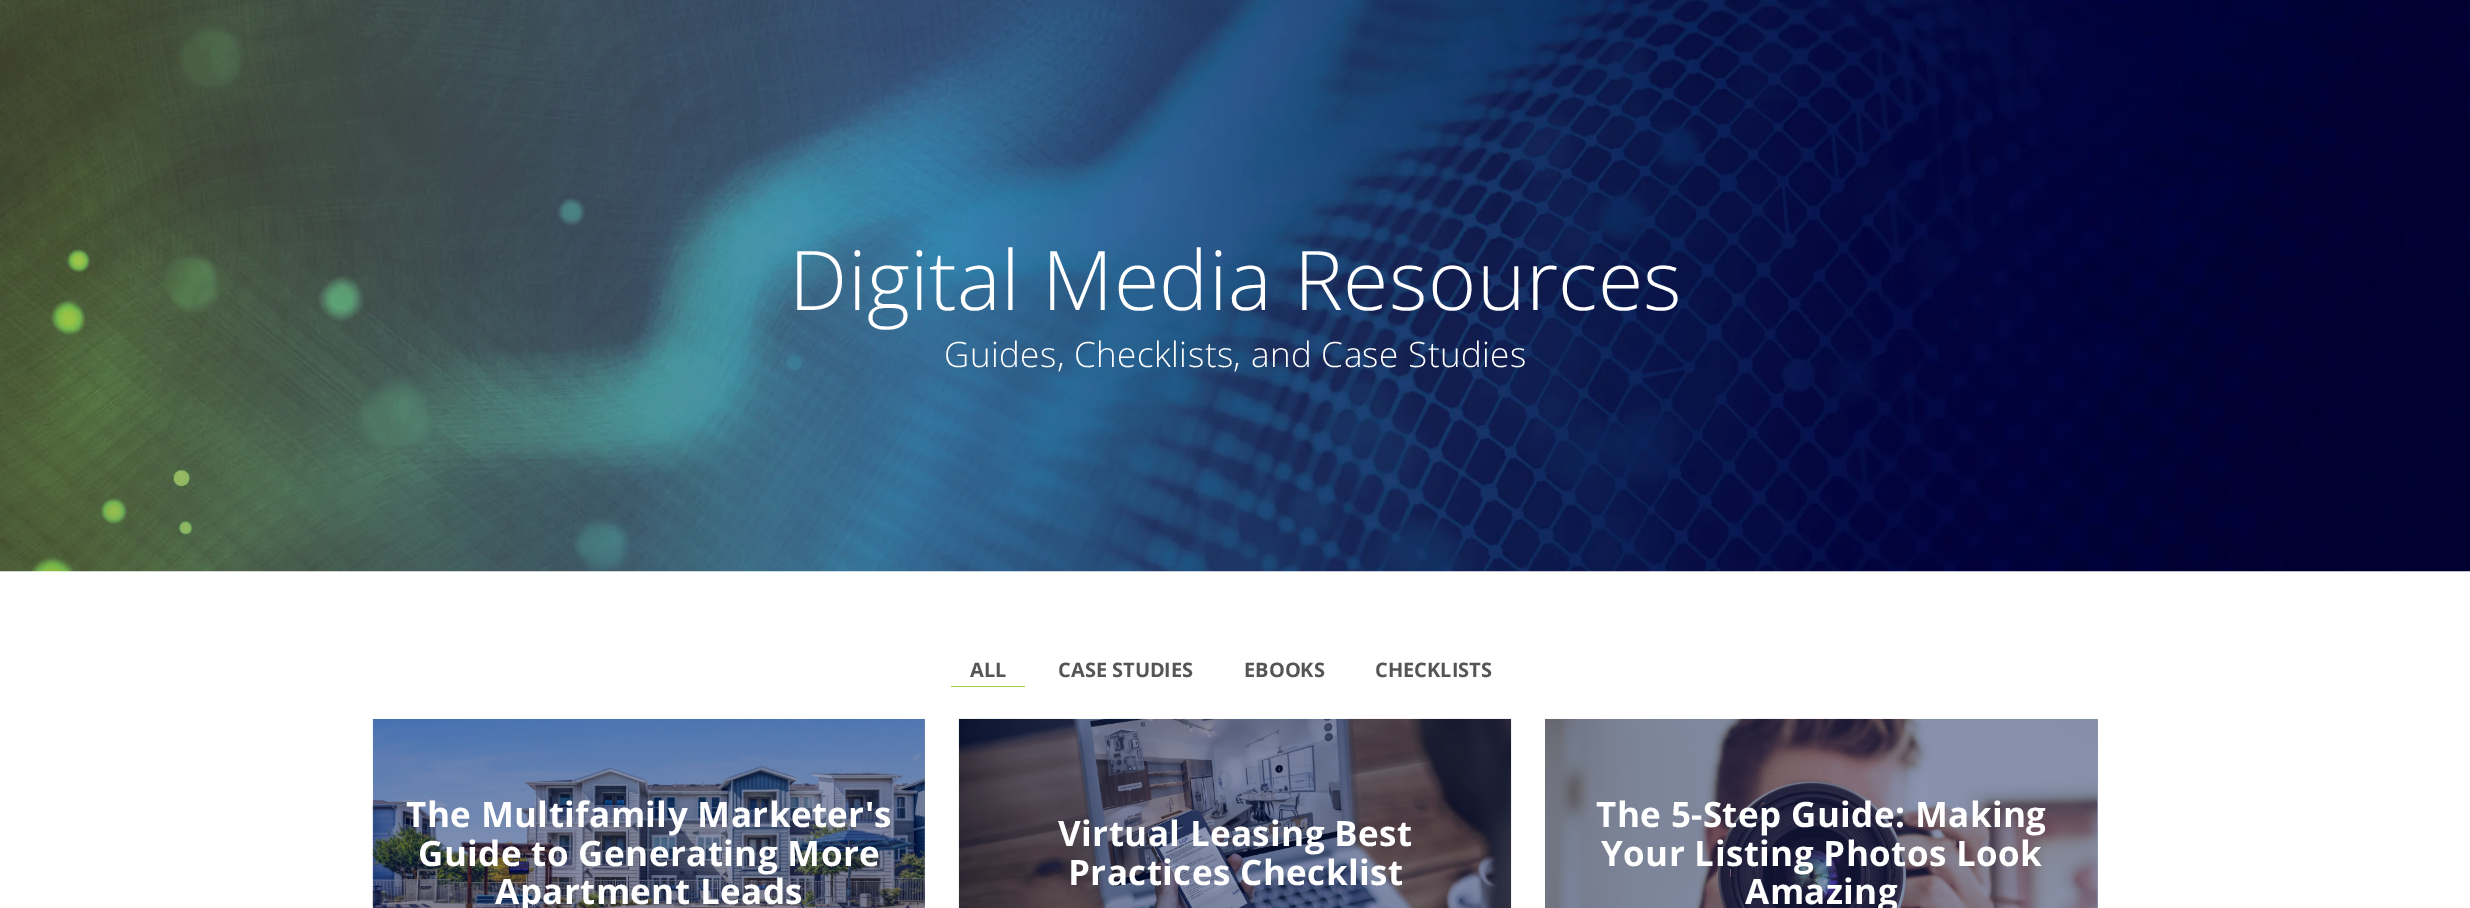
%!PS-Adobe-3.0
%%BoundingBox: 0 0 2470 908
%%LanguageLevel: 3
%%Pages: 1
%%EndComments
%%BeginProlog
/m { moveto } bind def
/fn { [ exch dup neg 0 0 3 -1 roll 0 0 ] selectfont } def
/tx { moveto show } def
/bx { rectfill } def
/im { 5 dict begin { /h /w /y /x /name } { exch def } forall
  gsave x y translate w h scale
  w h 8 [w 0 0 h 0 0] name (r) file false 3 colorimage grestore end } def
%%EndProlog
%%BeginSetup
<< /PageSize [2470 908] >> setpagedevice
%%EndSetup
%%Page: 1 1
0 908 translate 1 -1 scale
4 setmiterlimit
1 setgray
0 0 2470 908 bx
0.549 0.588 0.698 setrgbcolor
2097 719 1 189 bx
(image0.raw) 0 0 2470 572 im
/OpenSans-Light 82.5 fn
1 setgray
789 310 m 0.4 0 (Digital Media Resources) ashow
/OpenSans-Light 35 fn
944 367 m 0.4 0 (Guides, Checklists, and Case Studies) ashow
0.667 0.816 0.263 setrgbcolor
951 686 74 1 bx
/OpenSans-Bold 20 fn
0.333 setgray
(ALL) 970 677 tx
(CASE STUDIES) 1058 677 tx
(EBOOKS) 1244 677 tx
(CHECKLISTS) 1375 677 tx
(image1.raw) 372 718 553 190 im
/OpenSans-Bold 35 fn
1 setgray
406 827 m 0.4 0 (The Multifamily Marketer's) ashow
418 866 m 0.4 0 (Guide to Generating More) ashow
495 904 m 0.4 0 (Apartment Leads) ashow
(image2.raw) 958 718 554 190 im
1058 846 m 0.4 0 (Virtual Leasing Best) ashow
1068 885 m 0.4 0 (Practices Checklist) ashow
(image3.raw) 1545 718 553 190 im
1596 827 m 0.4 0 (The 5-Step Guide: Making) ashow
1601 866 m 0.4 0 (Your Listing Photos Look) ashow
1745 904 m 0.4 0 (Amazing) ashow
showpage
%%EOF
